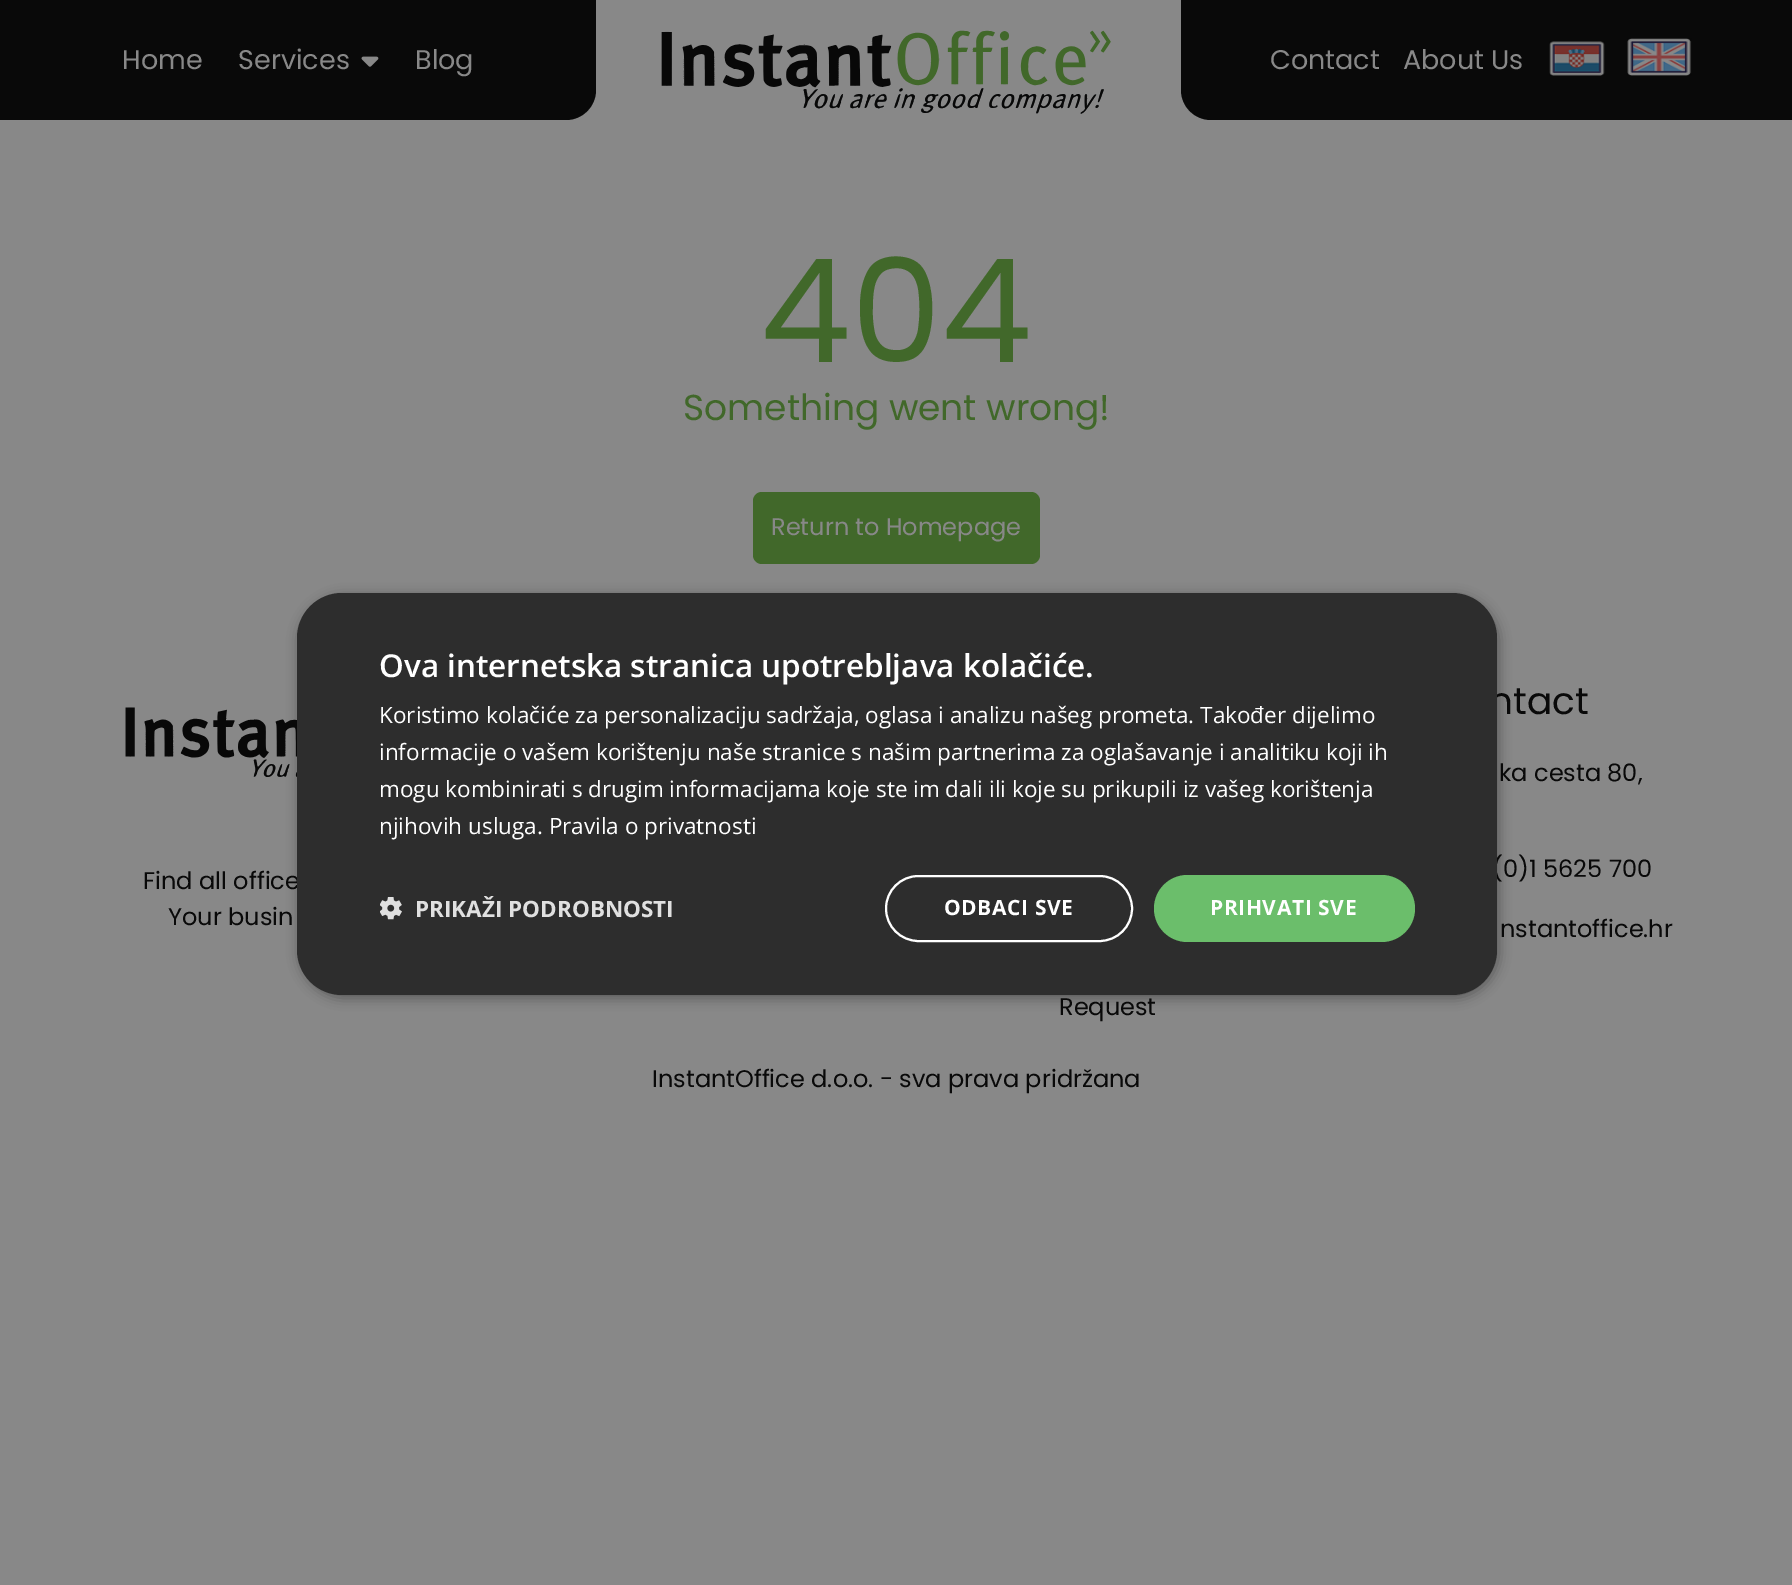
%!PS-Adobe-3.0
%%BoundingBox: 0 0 1792 1585
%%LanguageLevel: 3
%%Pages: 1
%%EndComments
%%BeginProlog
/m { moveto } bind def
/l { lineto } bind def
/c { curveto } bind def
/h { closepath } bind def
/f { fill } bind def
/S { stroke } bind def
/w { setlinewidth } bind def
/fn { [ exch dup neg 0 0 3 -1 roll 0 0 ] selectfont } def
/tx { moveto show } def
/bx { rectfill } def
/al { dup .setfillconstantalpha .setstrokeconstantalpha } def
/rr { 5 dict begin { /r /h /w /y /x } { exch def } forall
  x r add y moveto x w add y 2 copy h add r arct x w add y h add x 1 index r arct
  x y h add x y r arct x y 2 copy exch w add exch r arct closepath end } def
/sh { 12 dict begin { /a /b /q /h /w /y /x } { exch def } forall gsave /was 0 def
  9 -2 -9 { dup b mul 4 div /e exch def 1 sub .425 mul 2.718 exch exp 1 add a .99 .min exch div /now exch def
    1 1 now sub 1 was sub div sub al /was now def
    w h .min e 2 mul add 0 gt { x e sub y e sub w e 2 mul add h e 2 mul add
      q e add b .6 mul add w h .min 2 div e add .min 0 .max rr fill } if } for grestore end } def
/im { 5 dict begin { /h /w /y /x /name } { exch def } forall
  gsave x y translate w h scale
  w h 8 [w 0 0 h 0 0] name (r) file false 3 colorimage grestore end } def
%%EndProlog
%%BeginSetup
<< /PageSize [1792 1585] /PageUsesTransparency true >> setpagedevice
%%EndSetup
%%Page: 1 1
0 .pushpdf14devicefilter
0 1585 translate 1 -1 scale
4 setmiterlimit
0.533 setgray
0 0 1792 1585 bx
0.035 setgray
0 0 m 596 0 l 596 90 l 596 106.5 582.5 120 566 120 c 0 120 l h f
/Poppins-Regular 27 fn
0.533 setgray
(Home) 122 69 tx
(Services) 238 69 tx
(image0.raw) 361 56 18 11 im
(Blog) 415 69 tx
(image1.raw) 661 30 450 84 im
0.035 setgray
1181 0 m 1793 0 l 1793 120 l 1211 120 l 1194.5 120 1181 106.5 1181 90 c h f
0.533 setgray
(Contact) 1270 69 tx
(About Us) 1403 69 tx
(image2.raw) 1549 41 56 35 im
(image3.raw) 1627 38 65 38 im
/Poppins-Regular 144 fn
0.255 0.408 0.165 setrgbcolor
(404) 760 362 tx
/Poppins-Regular 36 fn
(Something went wrong!) 683 420 tx
753 492 287 72 9 rr f
/Poppins-Regular 24 fn
0.533 setgray
(Return to Homepage) 771 535 tx
(image4.raw) 125 706 172 76 im
0.035 setgray
(Find all office) 143 889 tx
(Your busin) 168 925 tx
/Poppins-Regular 37.5 fn
(ntact) 1489 714 tx
/Poppins-Regular 24 fn
(ka cesta 80,) 1499 781 tx
(\(0\)1 5625 700) 1492 877 tx
(nstantoffice.hr) 1500 937 tx
(Request) 1059 1015 tx
(InstantOffice d.o.o. - sva prava pridržana) 652 1087 tx
0 setgray
299 596 1200 402 45 6 0.35 sh
0.176 setgray
297 593 1200 402 45 rr f
/OpenSans-SemiBold 31.5 fn
1 setgray
(Ova internetska stranica upotrebljava kolačiće.) 379 677 tx
/OpenSans-Regular 22.5 fn
(Koristimo kolačiće za personalizaciju sadržaja, oglasa i analizu našeg prometa. Također dijelimo) 379 723 tx
(informacije o vašem korištenju naše stranice s našim partnerima za oglašavanje i analitiku koji ih) 379 760 tx
(mogu kombinirati s drugim informacijama koje ste im dali ili koje su prikupili iz vašeg korištenja) 379 797 tx
(njihovih usluga. Pravila o privatnosti) 379 834 tx
(image5.raw) 380 897 22 23 im
/OpenSans-Bold 22.5 fn
0.878 setgray
(PRIKAŽI PODROBNOSTI) 415 917 tx
1 setgray
2 w
886 876 246 65 32.5 rr S
/OpenSans-Bold 21 fn
944 915 m 0.6 0 (ODBACI SVE) ashow
0.42 0.745 0.42 setrgbcolor
1154 875 261 67 33.5 rr f
1 setgray
1210 915 m 0.6 0 (PRIHVATI SVE) ashow
.poppdf14devicefilter showpage
%%EOF
